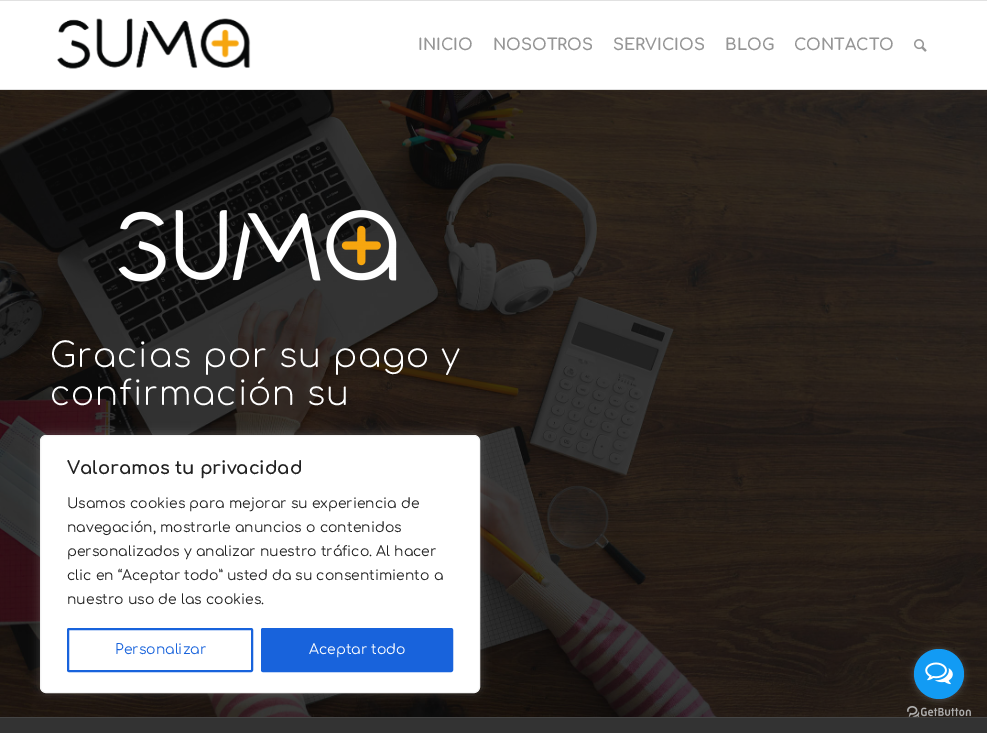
%!PS-Adobe-3.0
%%BoundingBox: 0 0 987 733
%%LanguageLevel: 3
%%Pages: 1
%%EndComments
%%BeginProlog
/m { moveto } bind def
/f { fill } bind def
/S { stroke } bind def
/q { gsave } bind def
/Q { grestore } bind def
/w { setlinewidth } bind def
/fn { [ exch dup neg 0 0 3 -1 roll 0 0 ] selectfont } def
/tx { moveto show } def
/bx { rectfill } def
/al { dup .setfillconstantalpha .setstrokeconstantalpha } def
/ci { newpath 0 360 arc closepath } def
/rr { 5 dict begin { /r /h /w /y /x } { exch def } forall
  x r add y moveto x w add y 2 copy h add r arct x w add y h add x 1 index r arct
  x y h add x y r arct x y 2 copy exch w add exch r arct closepath end } def
/sh { 12 dict begin { /a /b /q /h /w /y /x } { exch def } forall gsave /was 0 def
  9 -2 -9 { dup b mul 4 div /e exch def 1 sub .425 mul 2.718 exch exp 1 add a .99 .min exch div /now exch def
    1 1 now sub 1 was sub div sub al /was now def
    w h .min e 2 mul add 0 gt { x e sub y e sub w e 2 mul add h e 2 mul add
      q e add b .6 mul add w h .min 2 div e add .min 0 .max rr fill } if } for grestore end } def
/im { 5 dict begin { /h /w /y /x /name } { exch def } forall
  gsave x y translate w h scale
  w h 8 [w 0 0 h 0 0] name (r) file false 3 colorimage grestore end } def
%%EndProlog
%%BeginSetup
<< /PageSize [987 733] /PageUsesTransparency true >> setpagedevice
%%EndSetup
%%Page: 1 1
0 .pushpdf14devicefilter
0 733 translate 1 -1 scale
4 setmiterlimit
1 setgray
0 0 987 733 bx
0.882 setgray
0 0 987 1 bx
0 89 987 1 bx
(image0.raw) 57 18 194 51 im
/Comfortaa-Bold 16 fn
0.588 setgray
(INICIO) 418 50 tx
(NOSOTROS) 493 50 tx
(SERVICIOS) 613 50 tx
(BLOG) 725 50 tx
(CONTACTO) 794 50 tx
(image1.raw) 914 39 13 13 im
(image2.raw) 0 90 987 627 im
(image3.raw) 118 210 279 72 im
/Comfortaa-Light 34 fn
1 setgray
50 367 m 1 0 (Gracias por su pago y) ashow
50 405 m 1 0 (confirmación su) ashow
0.2 setgray
0 718 987 15 bx
0.267 setgray
0 717 987 1 bx
0.675 0.671 0.671 setrgbcolor
40 434 440 258 6 5 0.3 sh
1 setgray
40.5 435.5 439 257 5.5 rr q f Q
0.957 setgray
S
/Comfortaa-Bold 18 fn
0.129 setgray
(Valoramos tu privacidad) 67 474 tx
/Comfortaa-Regular 14 fn
(Usamos cookies para mejorar su experiencia de) 67 508 tx
(navegación, mostrarle anuncios o contenidos) 67 532 tx
(personalizados y analizar nuestro tráfico. Al hacer) 67 556 tx
(clic en “Aceptar todo” usted da su consentimiento a) 67 580 tx
(nuestro uso de las cookies.) 67 604 tx
0.094 0.388 0.863 setrgbcolor
2 w
68 629 184 42 1 rr S
(Personalizar) 115 654 tx
262 629 190 42 1 rr q f Q
S
1 setgray
(Aceptar todo) 309 654 tx
(image5.raw) 907 706 64 11 im
0.533 setgray
914 650 50 50 25 3.5 0.4 sh
0.071 0.608 0.957 setrgbcolor
939 674 25 ci f
(image4.raw) 925 662 28 23 im
.poppdf14devicefilter showpage
%%EOF
